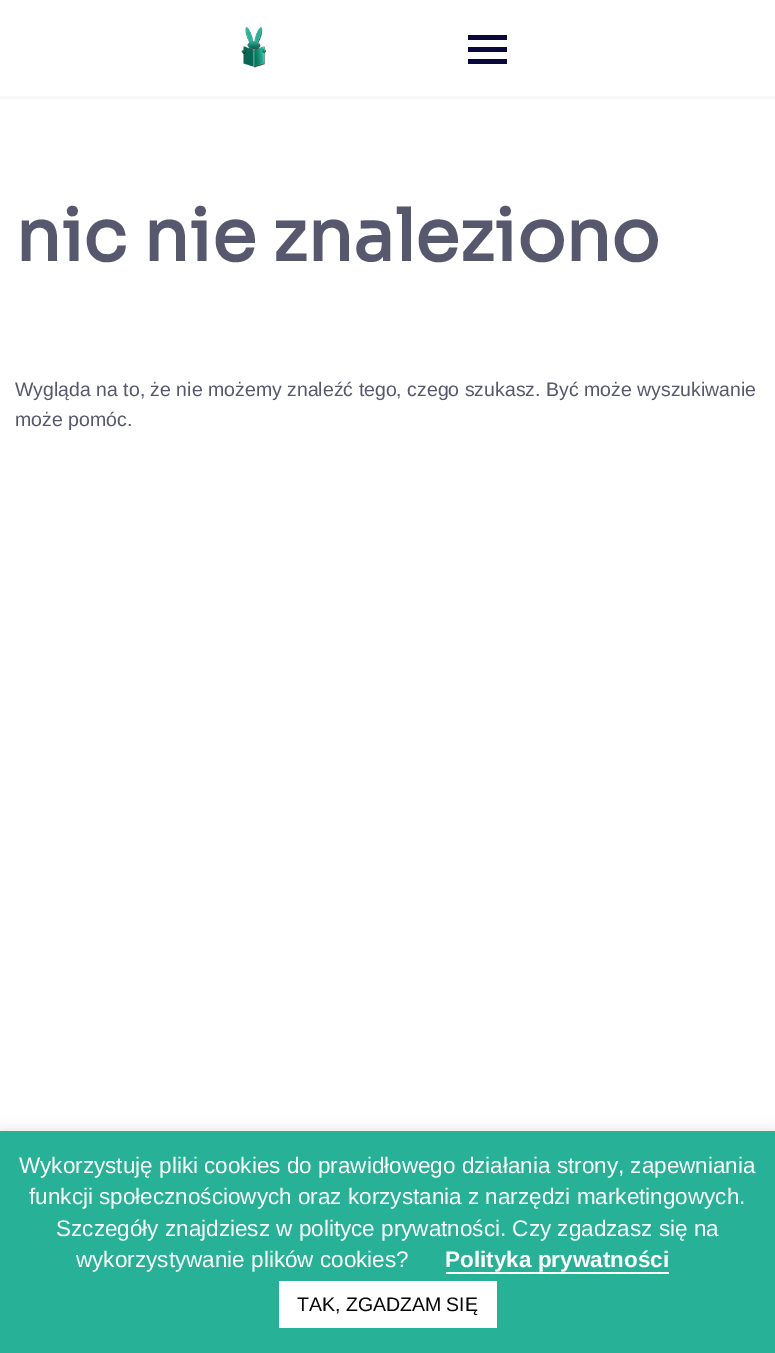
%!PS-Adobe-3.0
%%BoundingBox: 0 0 775 1353
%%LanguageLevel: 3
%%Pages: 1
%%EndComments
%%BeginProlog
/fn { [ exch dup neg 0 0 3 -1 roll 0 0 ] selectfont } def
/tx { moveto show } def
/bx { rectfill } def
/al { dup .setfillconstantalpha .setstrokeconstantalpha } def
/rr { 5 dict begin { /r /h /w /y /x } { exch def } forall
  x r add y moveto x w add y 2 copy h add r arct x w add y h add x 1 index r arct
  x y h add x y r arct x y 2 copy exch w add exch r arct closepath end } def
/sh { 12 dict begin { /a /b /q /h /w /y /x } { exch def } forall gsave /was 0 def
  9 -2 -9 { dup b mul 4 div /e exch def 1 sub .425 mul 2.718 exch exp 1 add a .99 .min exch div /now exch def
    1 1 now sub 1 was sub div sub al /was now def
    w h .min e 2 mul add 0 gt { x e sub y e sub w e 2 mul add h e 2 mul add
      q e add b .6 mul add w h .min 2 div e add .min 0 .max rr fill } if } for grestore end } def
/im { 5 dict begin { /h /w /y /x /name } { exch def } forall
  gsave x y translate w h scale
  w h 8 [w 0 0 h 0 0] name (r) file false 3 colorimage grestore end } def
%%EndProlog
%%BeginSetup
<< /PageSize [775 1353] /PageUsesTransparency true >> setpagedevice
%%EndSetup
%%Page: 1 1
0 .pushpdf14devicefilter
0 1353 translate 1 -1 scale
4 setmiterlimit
1 setgray
0 0 775 1353 bx
0.973 setgray
0 96 775 3 bx
(image0.raw) 241 26 26 42 im
0.039 0.031 0.231 setrgbcolor
468 47 39 5 bx
468 35 39 5 bx
468 59 39 5 bx
/Sora-Bold 72 fn
0.341 0.345 0.431 setrgbcolor
(nic nie znaleziono) 15 261 tx
/LiberationSans-Regular 19.5 fn
(Wygląda na to, że nie możemy znaleźć tego, czego szukasz. Być może wyszukiwanie) 15 396 tx
(może pomóc.) 15 426 tx
0.675 0.671 0.671 setrgbcolor
0 1130 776 222 0 7.5 0.3 sh
0.153 0.698 0.592 setrgbcolor
0 1131 775 222 bx
/LiberationSans-Regular 22.5 fn
1 setgray
(Wykorzystuję pliki cookies do prawidłowego działania strony, zapewniania) 19 1173 tx
(funkcji społecznościowych oraz korzystania z narzędzi marketingowych.) 29 1204 tx
(Szczegóły znajdziesz w polityce prywatności. Czy zgadzasz się na) 56 1236 tx
(wykorzystywanie plików cookies?) 76 1267 tx
/LiberationSans-Bold 22.5 fn
(Polityka prywatności) 445 1267 tx
446 1272 223 2 bx
279 1281 218 47 bx
/LiberationSans-Regular 19.5 fn
0.027 setgray
(TAK, ZGADZAM SIĘ) 297 1311 tx
.poppdf14devicefilter showpage
%%EOF
